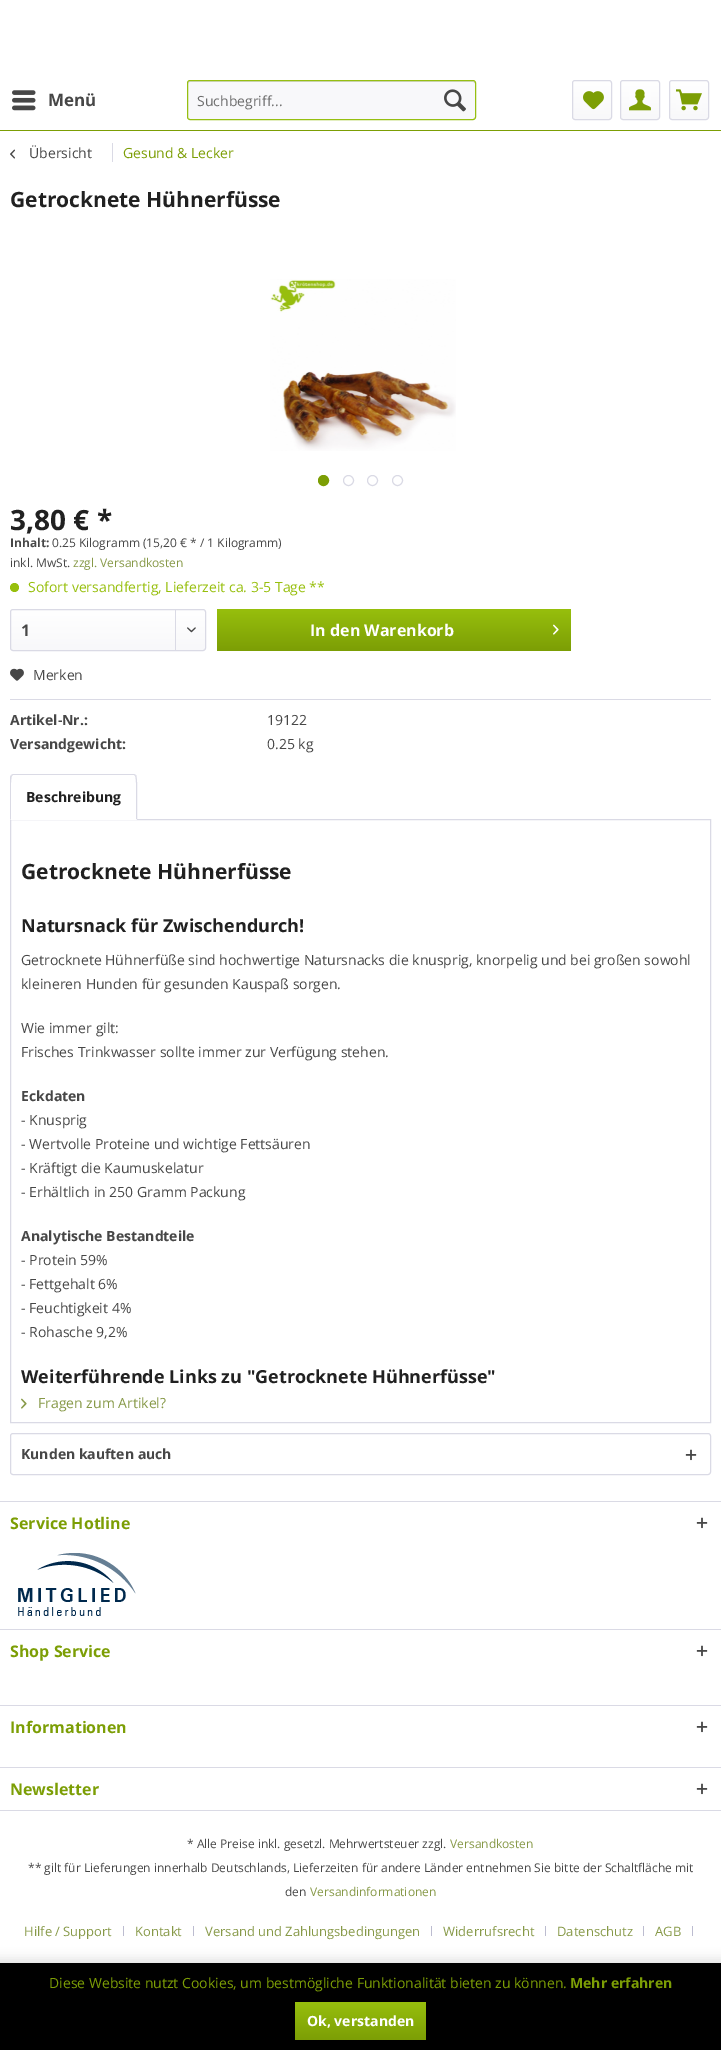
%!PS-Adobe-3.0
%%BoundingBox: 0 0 721 2050
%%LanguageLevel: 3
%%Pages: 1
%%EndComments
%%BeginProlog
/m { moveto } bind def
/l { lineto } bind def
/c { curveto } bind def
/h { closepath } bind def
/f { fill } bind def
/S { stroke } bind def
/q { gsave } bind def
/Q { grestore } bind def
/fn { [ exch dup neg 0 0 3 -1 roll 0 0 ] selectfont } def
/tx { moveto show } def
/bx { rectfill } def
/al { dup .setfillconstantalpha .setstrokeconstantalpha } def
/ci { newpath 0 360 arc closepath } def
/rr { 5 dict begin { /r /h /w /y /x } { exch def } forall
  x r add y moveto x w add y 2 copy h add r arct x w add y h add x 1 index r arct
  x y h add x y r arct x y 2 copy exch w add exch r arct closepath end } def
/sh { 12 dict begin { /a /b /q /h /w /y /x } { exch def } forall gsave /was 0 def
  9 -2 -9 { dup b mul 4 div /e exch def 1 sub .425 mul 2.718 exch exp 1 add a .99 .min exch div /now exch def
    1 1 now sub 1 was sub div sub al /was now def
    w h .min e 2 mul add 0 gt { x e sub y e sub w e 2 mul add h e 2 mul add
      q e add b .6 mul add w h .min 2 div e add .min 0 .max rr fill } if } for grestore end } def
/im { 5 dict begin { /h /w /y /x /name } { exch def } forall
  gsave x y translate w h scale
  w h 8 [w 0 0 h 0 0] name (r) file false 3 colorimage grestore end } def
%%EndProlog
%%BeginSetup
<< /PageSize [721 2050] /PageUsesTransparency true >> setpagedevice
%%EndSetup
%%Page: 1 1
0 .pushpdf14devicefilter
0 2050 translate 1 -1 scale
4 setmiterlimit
1 setgray
0 0 721 2050 bx
0.486 0.62 0.02 setrgbcolor
0 130 721 1 bx
(image0.raw) 12 90 24 21 im
/OpenSans-Bold 17 fn
0.278 setgray
(Menü) 48 106 tx
0.973 0.973 0.98 setrgbcolor
187 80 289 40 3 rr f
0.855 0.855 0.898 setrgbcolor
190 82 m 473 82 l 474 82 475 83 475 84 c 475 83 475 81 473 81 c 190 81 l 188 81 188 83 188 84 c 188 83 189 82 190 82 c h f
0.588 0.749 0.067 setrgbcolor
187.5 80.5 288 39 2.5 rr S
/OpenSans-Regular 14 fn
0.427 setgray
(Suchbegriff...) 197 106 tx
(image1.raw) 444 89 22 23 im
q 573 81 38 38 2 rr clip newpath
<< /ShadingType 2 /ColorSpace /DeviceRGB /Coords [592 81 592 119] /Extend [true true] /Function << /FunctionType 2 /Domain [0 1] /C0 [1 1 1] /C1 [0.973 0.973 0.98] /N 1 >> >> shfill Q
0.855 0.855 0.898 setrgbcolor
572.5 80.5 39 39 2.5 rr S
(image2.raw) 583 91 21 19 im
q 621 81 38 38 2 rr clip newpath
<< /ShadingType 2 /ColorSpace /DeviceRGB /Coords [640 81 640 119] /Extend [true true] /Function << /FunctionType 2 /Domain [0 1] /C0 [1 1 1] /C1 [0.973 0.973 0.98] /N 1 >> >> shfill Q
620.5 80.5 39 39 2.5 rr S
(image3.raw) 629 89 22 22 im
q 670 81 38 38 2 rr clip newpath
<< /ShadingType 2 /ColorSpace /DeviceRGB /Coords [689 81 689 119] /Extend [true true] /Function << /FunctionType 2 /Domain [0 1] /C0 [1 1 1] /C1 [0.973 0.973 0.98] /N 1 >> >> shfill Q
669.5 80.5 39 39 2.5 rr S
(image4.raw) 676 89 26 22 im
(image5.raw) 10 149 5 10 im
0.278 setgray
(Übersicht) 29 158 tx
0.855 0.855 0.898 setrgbcolor
112 143 1 19 bx
0.486 0.62 0.02 setrgbcolor
(Gesund & Lecker) 123 158 tx
/OpenSans-Bold 21 fn
0.129 setgray
(Getrocknete Hühnerfüsse) 10 207 tx
(image6.raw) 270 279 186 172 im
0.486 0.62 0.02 setrgbcolor
323.5 480.5 5 ci q f Q
S
0.855 0.855 0.898 setrgbcolor
348.5 480.5 5 ci S
372.5 480.5 5 ci S
397.5 480.5 5 ci S
/OpenSans-Bold 28 fn
0.129 setgray
(3,80 € *) 10 530 tx
/OpenSans-Bold 12 fn
0.278 setgray
(Inhalt:) 10 547 tx
/OpenSans-Regular 12 fn
(0.25 Kilogramm \(15,20 € * / 1 Kilogramm\)) 52 547 tx
(inkl. MwSt.) 10 567 tx
0.529 0.6 0.282 setrgbcolor
(zzgl. Versandkosten) 73 567 tx
0.592 0.749 0.051 setrgbcolor
14.5 587.5 4.5 ci f
/OpenSans-Regular 14 fn
(Sofort versandfertig, Lieferzeit ca. 3-5 Tage **) 28 592 tx
q 11 610 194 40 2 rr clip newpath
<< /ShadingType 2 /ColorSpace /DeviceRGB /Coords [108 610 108 650] /Extend [true true] /Function << /FunctionType 2 /Domain [0 1] /C0 [1 1 1] /C1 [0.973 0.973 0.98] /N 1 >> >> shfill Q
0.855 0.855 0.898 setrgbcolor
10.5 609.5 195 41 2.5 rr S
/OpenSans-Bold 16 fn
0.278 setgray
(1) 21 636 tx
0.855 0.855 0.898 setrgbcolor
175 610 1 40 bx
(image7.raw) 187 627 9 6 im
q 217 609 354 42 3 rr clip newpath
<< /ShadingType 2 /ColorSpace /DeviceRGB /Coords [394 609 394 651] /Extend [true true] /Function << /FunctionType 2 /Domain [0 1] /C0 [0.592 0.749 0.051] /C1 [0.486 0.62 0.02] /N 1 >> >> shfill Q
1 setgray
(In den Warenkorb) 310 636 tx
(image8.raw) 553 624 6 11 im
0.855 0.855 0.898 setrgbcolor
10 699 701 1 bx
(image9.raw) 10 668 14 13 im
/OpenSans-Regular 14 fn
0.278 setgray
(Merken) 33 680 tx
/OpenSans-Bold 14 fn
(Artikel-Nr.:) 10 725 tx
/OpenSans-Regular 14 fn
(19122) 267 725 tx
/OpenSans-Bold 14 fn
(Versandgewicht:) 10 749 tx
/OpenSans-Regular 14 fn
(0.25 kg) 267 749 tx
0.855 0.855 0.898 setrgbcolor
10.5 819.5 700 603 rectstroke
1 setgray
13 774 m 134 774 l 135.5 774 137 775.5 137 777 c 137 820 l 10 820 l 10 777 l 10 775.5 11.5 774 13 774 c h f
0.855 0.855 0.898 setrgbcolor
13 774 m 11 775 l 12 776 l 13 775 l 134 775 l 135 776 l 136 775 l 134 774 l h f
137 820 m 137 815 138 777 136 775 c 135 776 l 137 777 136 814 136 819 c h f
1 setgray
137 820 m 136 819 l 11 819 l 10 820 l h f
0.855 0.855 0.898 setrgbcolor
10 820 m 11 819 l 11 814 10 777 12 776 c 11 775 l 10 777 l h f
/OpenSans-Bold 14 fn
0.129 setgray
(Beschreibung) 26 802 tx
/OpenSans-Bold 21 fn
(Getrocknete Hühnerfüsse) 21 879 tx
/OpenSans-Bold 18 fn
(Natursnack für Zwischendurch!) 21 932 tx
/OpenSans-Regular 14 fn
0.278 setgray
(Getrocknete Hühnerfüße sind hochwertige Natursnacks die knusprig, knorpelig und bei großen sowohl) 21 965 tx
(kleineren Hunden für gesunden Kauspaß sorgen.) 21 989 tx
(Wie immer gilt:) 21 1033 tx
(Frisches Trinkwasser sollte immer zur Verfügung stehen.) 21 1057 tx
/OpenSans-Bold 14 fn
(Eckdaten) 21 1101 tx
/OpenSans-Regular 14 fn
(- Knusprig) 21 1125 tx
(- Wertvolle Proteine und wichtige Fettsäuren) 21 1149 tx
(- Kräftigt die Kaumuskelatur) 21 1173 tx
(- Erhältlich in 250 Gramm Packung) 21 1197 tx
/OpenSans-Bold 14 fn
(Analytische Bestandteile) 21 1241 tx
/OpenSans-Regular 14 fn
(- Protein 59%) 21 1265 tx
(- Fettgehalt 6%) 21 1289 tx
(- Feuchtigkeit 4%) 21 1313 tx
(- Rohasche 9,2%) 21 1337 tx
/OpenSans-Bold 18 fn
0.129 setgray
(Weiterführende Links zu "Getrocknete Hühnerfüsse") 21 1383 tx
(image10.raw) 21 1398 6 11 im
/OpenSans-Regular 14 fn
0.529 0.6 0.282 setrgbcolor
(Fragen zum Artikel?) 38 1408 tx
0.855 0.855 0.898 setrgbcolor
10.5 1433.5 700 41 2.5 rr S
/OpenSans-Bold 14 fn
0.278 setgray
(Kunden kauften auch) 21 1459 tx
(image11.raw) 685 1449 12 12 im
0.855 0.855 0.898 setrgbcolor
0 1501 721 1 bx
/OpenSans-Bold 16 fn
0.486 0.62 0.02 setrgbcolor
(Service Hotline) 10 1529 tx
(image11.raw) 696 1517 12 12 im
(image12.raw) 18 1553 118 63 im
0.855 0.855 0.898 setrgbcolor
0 1629 721 1 bx
0.486 0.62 0.02 setrgbcolor
(Shop Service) 10 1657 tx
(image11.raw) 696 1645 12 12 im
0.855 0.855 0.898 setrgbcolor
0 1705 721 1 bx
0.486 0.62 0.02 setrgbcolor
(Informationen) 10 1733 tx
(image11.raw) 696 1721 12 12 im
0.855 0.855 0.898 setrgbcolor
0 1767 721 1 bx
0 1810 721 1 bx
0.486 0.62 0.02 setrgbcolor
(Newsletter) 10 1795 tx
(image11.raw) 696 1783 12 12 im
/OpenSans-Regular 12 fn
0.278 setgray
(* Alle Preise inkl. gesetzl. Mehrwertsteuer zzgl.) 187 1848 tx
0.529 0.6 0.282 setrgbcolor
(Versandkosten) 450 1848 tx
0.278 setgray
(** gilt für Lieferungen innerhalb Deutschlands, Lieferzeiten für andere Länder entnehmen Sie bitte der Schaltfläche mit) 28 1872 tx
(den) 285 1896 tx
0.529 0.6 0.282 setrgbcolor
(Versandinformationen) 310 1896 tx
/OpenSans-Regular 13 fn
(Hilfe / Support) 24 1936 tx
0.737 0.737 0.816 setrgbcolor
123 1926 1 10 bx
0.529 0.6 0.282 setrgbcolor
(Kontakt) 135 1936 tx
0.737 0.737 0.816 setrgbcolor
193 1926 1 10 bx
0.529 0.6 0.282 setrgbcolor
(Versand und Zahlungsbedingungen) 205 1936 tx
0.737 0.737 0.816 setrgbcolor
431 1926 1 10 bx
0.529 0.6 0.282 setrgbcolor
(Widerrufsrecht) 443 1936 tx
0.737 0.737 0.816 setrgbcolor
545 1926 1 10 bx
0.529 0.6 0.282 setrgbcolor
(Datenschutz) 557 1936 tx
0.737 0.737 0.816 setrgbcolor
643 1926 1 10 bx
0.529 0.6 0.282 setrgbcolor
(AGB) 655 1936 tx
0.737 0.737 0.816 setrgbcolor
692 1926 1 10 bx
0 setgray
-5 1958 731 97 0 5 0.1 sh
0 1963 721 87 bx
/OpenSans-Regular 14 fn
0.486 0.62 0.02 setrgbcolor
(Diese Website nutzt Cookies, um bestmögliche Funktionalität bieten zu können.) 49 1988 tx
/OpenSans-Bold 14 fn
(Mehr erfahren) 570 1988 tx
q 295 2002 131 38 3 rr clip newpath
<< /ShadingType 2 /ColorSpace /DeviceRGB /Coords [361 2002 361 2040] /Extend [true true] /Function << /FunctionType 2 /Domain [0 1] /C0 [0.592 0.749 0.051] /C1 [0.486 0.62 0.02] /N 1 >> >> shfill Q
1 setgray
(Ok, verstanden) 307 2026 tx
.poppdf14devicefilter showpage
%%EOF
